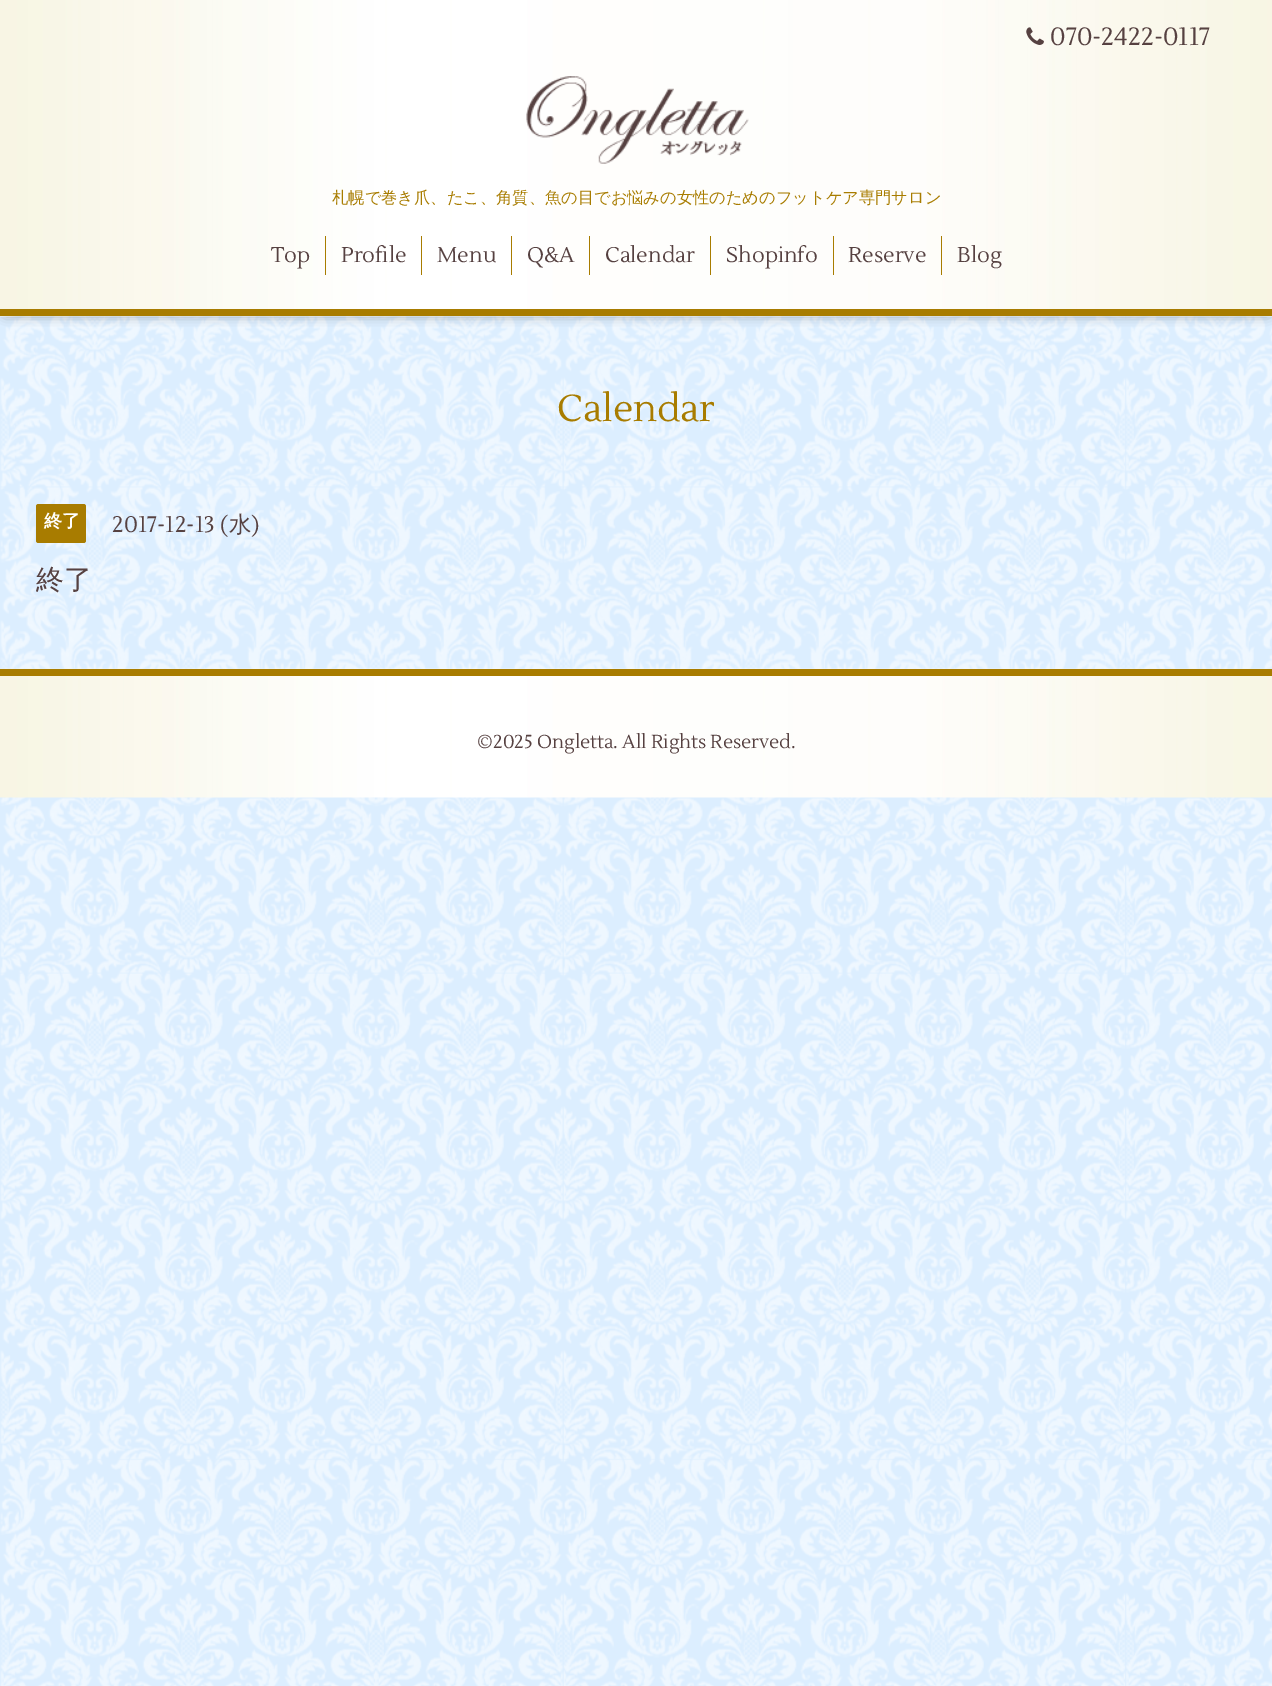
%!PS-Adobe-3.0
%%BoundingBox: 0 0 1272 1686
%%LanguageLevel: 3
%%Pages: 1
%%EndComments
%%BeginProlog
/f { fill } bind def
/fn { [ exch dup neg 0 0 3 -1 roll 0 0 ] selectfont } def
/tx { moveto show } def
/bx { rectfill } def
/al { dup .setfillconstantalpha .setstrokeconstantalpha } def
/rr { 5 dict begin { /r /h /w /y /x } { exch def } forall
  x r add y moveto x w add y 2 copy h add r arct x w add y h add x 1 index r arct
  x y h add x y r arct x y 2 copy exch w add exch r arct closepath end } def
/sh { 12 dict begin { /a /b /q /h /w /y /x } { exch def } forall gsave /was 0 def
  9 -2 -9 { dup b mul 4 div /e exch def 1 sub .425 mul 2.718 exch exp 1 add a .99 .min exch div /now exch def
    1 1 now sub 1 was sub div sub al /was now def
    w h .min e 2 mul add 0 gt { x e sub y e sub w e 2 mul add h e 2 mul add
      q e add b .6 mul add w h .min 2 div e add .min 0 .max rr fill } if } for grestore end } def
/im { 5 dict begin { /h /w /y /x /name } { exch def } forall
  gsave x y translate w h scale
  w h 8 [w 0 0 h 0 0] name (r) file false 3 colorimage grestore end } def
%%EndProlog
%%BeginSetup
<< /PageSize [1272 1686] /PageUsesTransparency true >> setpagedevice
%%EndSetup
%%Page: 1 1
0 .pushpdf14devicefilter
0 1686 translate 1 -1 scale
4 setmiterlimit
0.863 0.933 1 setrgbcolor
0 0 1272 1686 bx
(image0.raw) 0 316 1272 1370 im
0 setgray
5 6 1263 307 0 6 0.6 sh
(image1.raw) 0 0 1272 317 im
0.659 0.486 0 setrgbcolor
0 309 1272 7 bx
(image2.raw) 1026 27 18 18 im
/Lustria-Regular 25 fn
0.337 0.255 0.255 setrgbcolor
(070-2422-0117) 1050 45 tx
(image3.raw) 526 76 223 88 im
/WenQuanYiZenHei-Medium 16.25 fn
0.659 0.486 0 setrgbcolor
(札幌で巻き爪、たこ、角質、魚の目でお悩みの女性のためのフットケア専門サロン) 332 203 tx
/Lustria-Regular 21.25 fn
0.337 0.255 0.255 setrgbcolor
(Top) 271 262 tx
0.659 0.486 0 setrgbcolor
325 236 1 39 bx
0.337 0.255 0.255 setrgbcolor
(Profile) 341 262 tx
0.659 0.486 0 setrgbcolor
421 236 1 39 bx
0.337 0.255 0.255 setrgbcolor
(Menu) 437 262 tx
0.659 0.486 0 setrgbcolor
511 236 1 39 bx
0.337 0.255 0.255 setrgbcolor
(Q&A) 527 262 tx
0.659 0.486 0 setrgbcolor
589 236 1 39 bx
0.337 0.255 0.255 setrgbcolor
(Calendar) 605 262 tx
0.659 0.486 0 setrgbcolor
710 236 1 39 bx
0.337 0.255 0.255 setrgbcolor
(Shopinfo) 726 262 tx
0.659 0.486 0 setrgbcolor
833 236 1 39 bx
0.337 0.255 0.255 setrgbcolor
(Reserve) 848 262 tx
0.659 0.486 0 setrgbcolor
941 236 1 39 bx
0.337 0.255 0.255 setrgbcolor
(Blog) 957 262 tx
/Lustria-Regular 37.5 fn
0.659 0.486 0 setrgbcolor
(Calendar) 557 421 tx
36 504 50 39 2.5 rr f
/WenQuanYiZenHei-Bold 18 fn
1 setgray
(終了) 44 527 tx
/Lustria-Regular 22.5 fn
0.337 0.255 0.255 setrgbcolor
(2017-12-13 \() 112 532 tx
/WenQuanYiZenHei-Medium 22.5 fn
(水) 229 532 tx
/Lustria-Regular 22.5 fn
(\)) 251 532 tx
/WenQuanYiZenHei-Medium 28 fn
(終了) 36 589 tx
(image4.raw) 0 668 1272 130 im
0.659 0.486 0 setrgbcolor
0 669 1272 7 bx
/Lustria-Regular 18.75 fn
0.337 0.255 0.255 setrgbcolor
(©2025 Ongletta. All Rights Reserved.) 477 748 tx
.poppdf14devicefilter showpage
%%EOF
